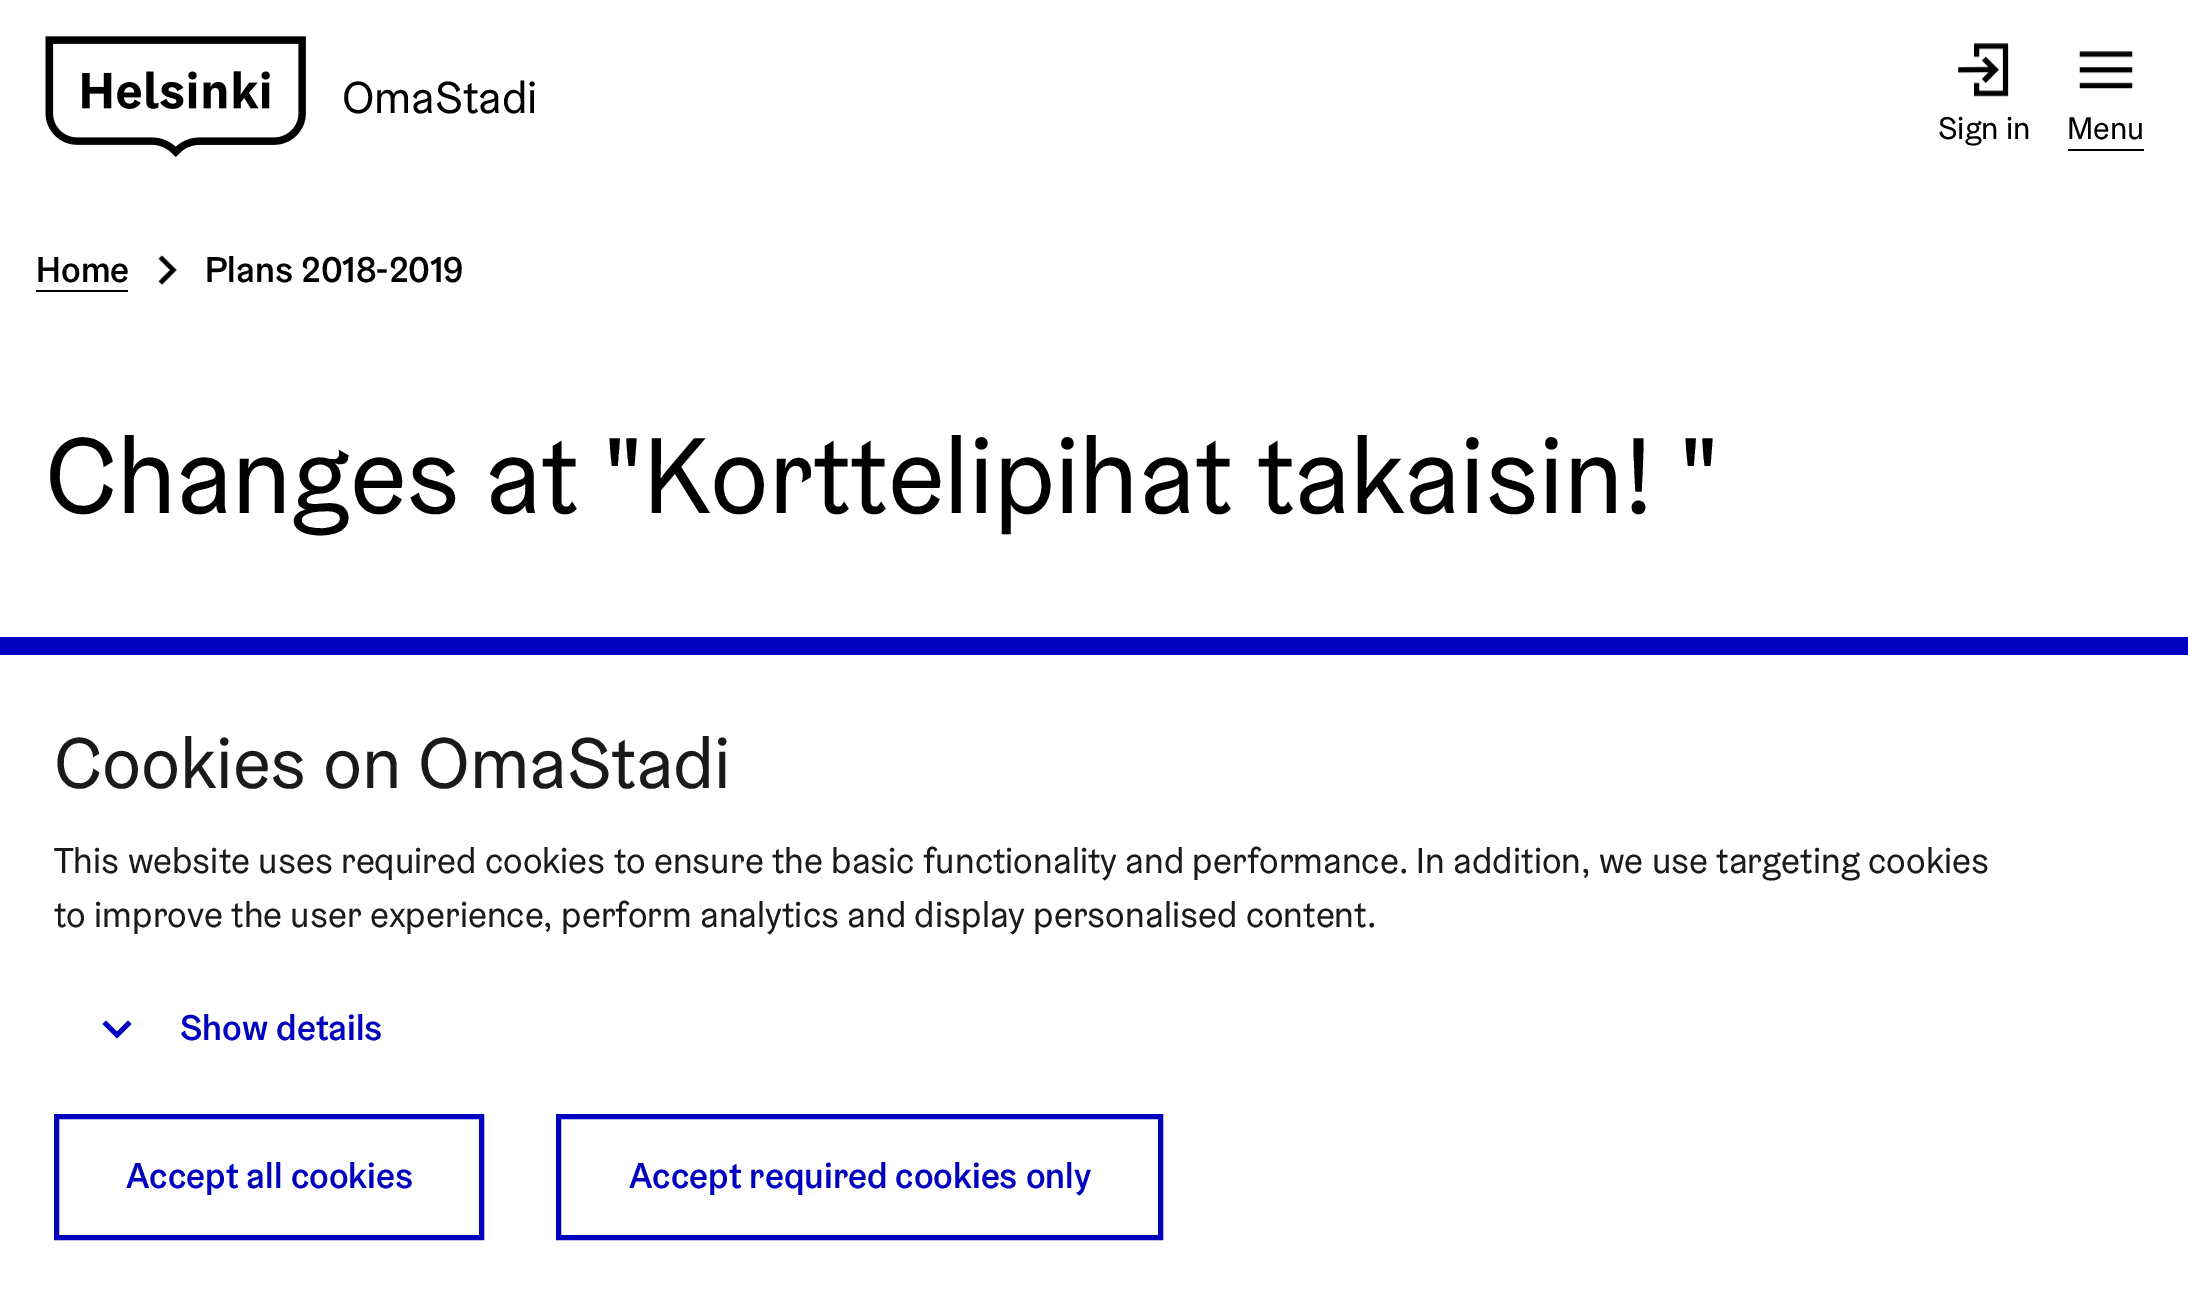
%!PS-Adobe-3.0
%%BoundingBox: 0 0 2188 1310
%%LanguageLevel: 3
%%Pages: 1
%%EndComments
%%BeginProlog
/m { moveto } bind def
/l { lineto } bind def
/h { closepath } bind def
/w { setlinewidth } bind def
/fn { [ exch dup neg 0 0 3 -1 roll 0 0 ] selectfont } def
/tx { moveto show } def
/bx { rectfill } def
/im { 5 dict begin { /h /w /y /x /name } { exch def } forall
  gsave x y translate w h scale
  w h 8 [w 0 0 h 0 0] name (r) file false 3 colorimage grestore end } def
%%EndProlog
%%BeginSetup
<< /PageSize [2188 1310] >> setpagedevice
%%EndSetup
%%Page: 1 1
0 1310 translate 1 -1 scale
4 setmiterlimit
1 setgray
0 0 2188 1310 bx
(image0.raw) 45 36 261 121 im
/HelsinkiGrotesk-Regular 45 fn
0 setgray
(OmaStadi) 342 113 tx
(image1.raw) 1958 43 51 54 im
/HelsinkiGrotesk-Regular 31.5 fn
(Sign in) 1938 139 tx
(image2.raw) 2079 51 54 38 im
(Menu) 2067 139 tx
2068 149 76 2 bx
/HelsinkiGrotesk-Medium 36 fn
(Home) 36 282 tx
36 290 92 2 bx
(image3.raw) 158 255 19 30 im
(Plans 2018-2019) 205 282 tx
/HelsinkiGrotesk-Regular 108 fn
(Changes at "Korttelipihat takaisin! ") 45 513 tx
0 0 0.749 setrgbcolor
0 637 2188 18 bx
/HelsinkiGrotesk-Regular 72 fn
0.102 setgray
(Cookies on OmaStadi) 54 788 tx
/HelsinkiGrotesk-Regular 36 fn
(This website uses required cookies to ensure the basic functionality and performance. In addition, we use targeting cookies) 54 873 tx
(to improve the user experience, perform analytics and display personalised content.) 54 927 tx
0 0 0.749 setrgbcolor
117 1031.5 m 128 1020.5 l 131.5 1024 l 117 1038.5 l 102.5 1024 l 106 1020.5 l h eofill
/HelsinkiGrotesk-Medium 36 fn
(Show details) 180 1040 tx
5 w
56.5 1116.5 425 121 rectstroke
(Accept all cookies) 126 1188 tx
558.5 1116.5 602 121 rectstroke
(Accept required cookies only) 629 1188 tx
showpage
%%EOF
